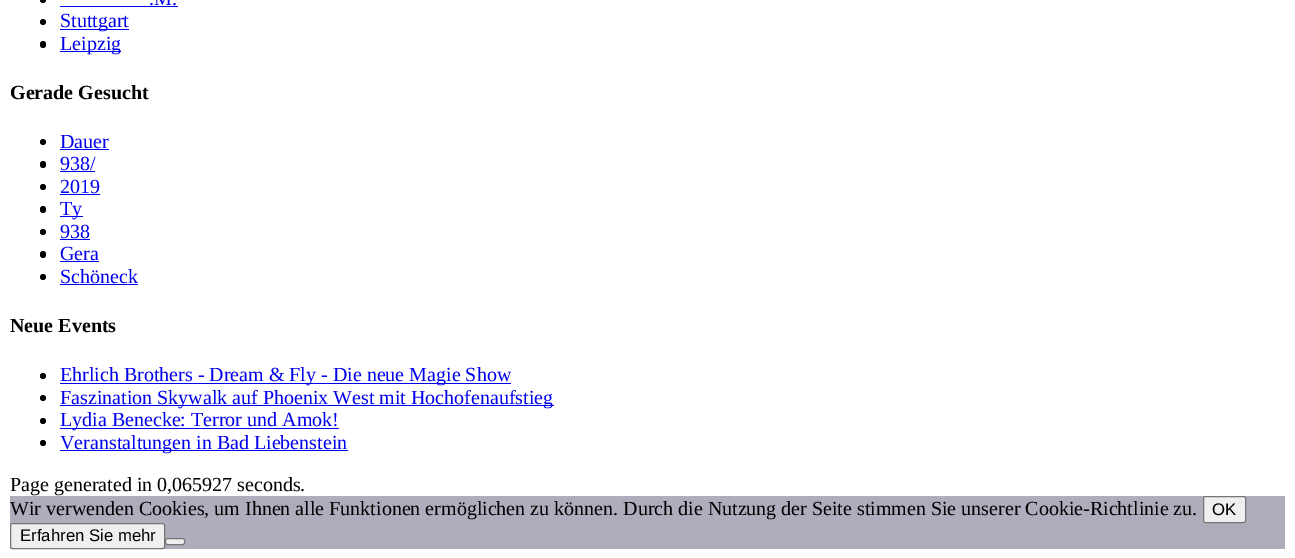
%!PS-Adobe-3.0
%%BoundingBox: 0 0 1295 558
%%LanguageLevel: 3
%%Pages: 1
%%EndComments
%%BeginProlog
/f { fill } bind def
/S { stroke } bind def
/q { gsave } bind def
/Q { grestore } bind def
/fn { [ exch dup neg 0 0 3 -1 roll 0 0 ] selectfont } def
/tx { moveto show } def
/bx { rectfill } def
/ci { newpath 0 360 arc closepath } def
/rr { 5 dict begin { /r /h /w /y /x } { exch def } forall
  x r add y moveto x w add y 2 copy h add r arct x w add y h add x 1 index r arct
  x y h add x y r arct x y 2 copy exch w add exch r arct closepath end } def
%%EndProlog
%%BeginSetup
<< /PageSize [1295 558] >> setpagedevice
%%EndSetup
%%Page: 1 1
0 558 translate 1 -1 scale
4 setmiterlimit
1 setgray
0 0 1295 558 bx
0 setgray
43 0 3 ci f
/LiberationSerif-Regular 20 fn
0 0 0.933 setrgbcolor
(.M.) 149 5 tx
60 6 118 1 bx
0 setgray
43 22 3 ci f
0 0 0.933 setrgbcolor
60 29 69 1 bx
(Stuttgart) 60 27 tx
0 setgray
40 41 6 7 3 rr f
0 0 0.933 setrgbcolor
60 51 61 1 bx
(Leipzig) 60 50 tx
/LiberationSerif-Bold 20 fn
0 setgray
(Gerade Gesucht) 10 99 tx
43 142 3 ci f
/LiberationSerif-Regular 20 fn
0 0 0.933 setrgbcolor
(Dauer) 60 148 tx
60 149 49 1 bx
0 setgray
40 161 6 7 3 rr f
0 0 0.933 setrgbcolor
(938/) 60 170 tx
60 171 35 1 bx
0 setgray
43 187 3 ci f
0 0 0.933 setrgbcolor
(2019) 60 193 tx
60 194 40 1 bx
0 setgray
40 206 6 7 3 rr f
0 0 0.933 setrgbcolor
60 216 23 1 bx
(Ty) 60 215 tx
0 setgray
43 232 3 ci f
0 0 0.933 setrgbcolor
(938) 60 238 tx
60 239 30 1 bx
0 setgray
40 251 6 7 3 rr f
0 0 0.933 setrgbcolor
(Gera) 60 260 tx
60 261 39 1 bx
0 setgray
43 277 3 ci f
0 0 0.933 setrgbcolor
(Schöneck) 60 283 tx
60 284 78 1 bx
/LiberationSerif-Bold 20 fn
0 setgray
(Neue Events) 10 332 tx
43 376 3 ci f
0 0 0.933 setrgbcolor
60 383 451 1 bx
/LiberationSerif-Regular 20 fn
(Ehrlich Brothers - Dream & Fly - Die neue Magie Show) 60 381 tx
0 setgray
43 398 3 ci f
0 0 0.933 setrgbcolor
60 405 494 1 bx
(Faszination Skywalk auf Phoenix West mit Hochofenaufstieg) 60 404 tx
0 setgray
43 421 3 ci f
0 0 0.933 setrgbcolor
60 428 279 1 bx
(Lydia Benecke: Terror und Amok!) 60 426 tx
0 setgray
43 443 3 ci f
0 0 0.933 setrgbcolor
60 450 288 1 bx
(Veranstaltungen in Bad Liebenstein) 60 449 tx
0 setgray
(Page generated in 0,065927 seconds.) 10 491 tx
0.678 0.678 0.737 setrgbcolor
10 496 1275 53 bx
0 setgray
(Wir verwenden Cookies, um Ihnen alle Funktionen ermöglichen zu können. Durch die Nutzung der Seite stimmen Sie unserer Cookie-Richtlinie zu.) 10 515 tx
0.937 setgray
1203.5 496.5 42 26 2 rr q f Q
0.463 setgray
S
/LiberationSans-Regular 16.75 fn
0 setgray
(OK) 1212 515 tx
0.937 setgray
10.5 523.5 154 25 2 rr q f Q
0.463 setgray
S
0 setgray
(Erfahren Sie mehr) 20 541 tx
0.937 setgray
165.5 538.5 19 6 2 rr q f Q
0.463 setgray
S
showpage
%%EOF
